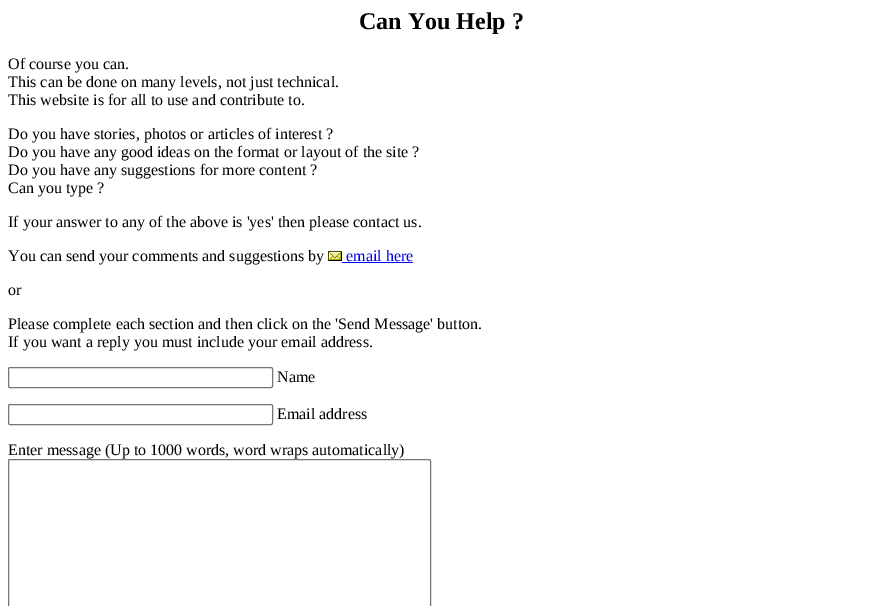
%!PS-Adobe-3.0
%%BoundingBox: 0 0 882 606
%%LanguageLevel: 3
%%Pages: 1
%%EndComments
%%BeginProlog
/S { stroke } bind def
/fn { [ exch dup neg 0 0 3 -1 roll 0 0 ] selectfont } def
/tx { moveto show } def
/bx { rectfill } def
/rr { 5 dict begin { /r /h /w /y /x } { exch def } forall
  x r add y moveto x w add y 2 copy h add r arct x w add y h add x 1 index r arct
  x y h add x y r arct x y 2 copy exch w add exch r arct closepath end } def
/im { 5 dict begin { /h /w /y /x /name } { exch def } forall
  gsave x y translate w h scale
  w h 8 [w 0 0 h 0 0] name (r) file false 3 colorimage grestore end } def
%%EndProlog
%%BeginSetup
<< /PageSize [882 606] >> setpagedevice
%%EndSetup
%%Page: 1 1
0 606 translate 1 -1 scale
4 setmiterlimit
1 setgray
0 0 882 606 bx
/LiberationSerif-Bold 24 fn
0 setgray
(Can You Help ?) 359 29 tx
/LiberationSerif-Regular 16 fn
(Of course you can.) 8 69 tx
(This can be done on many levels, not just technical.) 8 87 tx
(This website is for all to use and contribute to.) 8 105 tx
(Do you have stories, photos or articles of interest ?) 8 139 tx
(Do you have any good ideas on the format or layout of the site ?) 8 157 tx
(Do you have any suggestions for more content ?) 8 175 tx
(Can you type ?) 8 193 tx
(If your answer to any of the above is 'yes' then please contact us.) 8 227 tx
(You can send your comments and suggestions by) 8 261 tx
(image0.raw) 328 251 14 10 im
0 0 0.933 setrgbcolor
(email here) 346 261 tx
342 262 71 1 bx
0 setgray
(or) 8 295 tx
(Please complete each section and then click on the 'Send Message' button.) 8 329 tx
(If you want a reply you must include your email address.) 8 347 tx
0.463 setgray
8.5 367.5 264 20 1.5 rr S
0 setgray
(Name) 277 382 tx
0.463 setgray
8.5 404.5 264 20 1.5 rr S
0 setgray
(Email address) 277 419 tx
(Enter message \(Up to 1000 words, word wraps automatically\)) 8 455 tx
0.463 setgray
8.5 459.5 422 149 1.5 rr S
showpage
%%EOF
